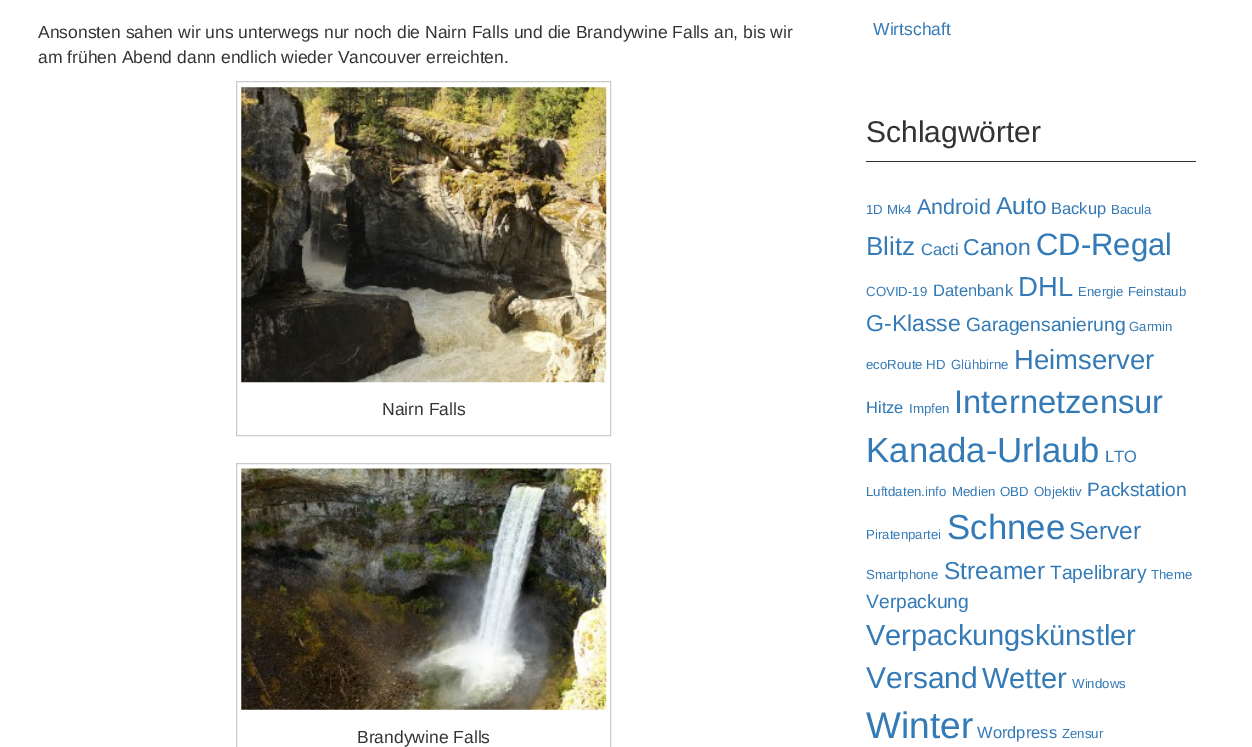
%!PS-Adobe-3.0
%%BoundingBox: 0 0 1252 747
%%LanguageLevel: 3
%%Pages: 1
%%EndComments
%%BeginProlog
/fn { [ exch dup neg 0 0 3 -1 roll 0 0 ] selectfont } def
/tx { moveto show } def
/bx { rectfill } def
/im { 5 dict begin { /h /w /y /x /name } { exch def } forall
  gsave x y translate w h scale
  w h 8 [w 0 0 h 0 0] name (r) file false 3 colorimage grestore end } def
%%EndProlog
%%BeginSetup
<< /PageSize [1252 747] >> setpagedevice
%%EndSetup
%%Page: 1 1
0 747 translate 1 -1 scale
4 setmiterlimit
1 setgray
0 0 1252 747 bx
/LiberationSans-Regular 17.5 fn
0.2 setgray
(Ansonsten sahen wir uns unterwegs nur noch die Nairn Falls und die Brandywine Falls an, bis wir) 38 38 tx
(am frühen Abend dann endlich wieder Vancouver erreichten.) 38 63 tx
0.8 setgray
236.5 81.5 374 354 rectstroke
(image0.raw) 241 87 366 296 im
0.2 setgray
(Nairn Falls) 382 415 tx
0.8 setgray
236.5 463.5 374 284 rectstroke
(image1.raw) 241 468 366 242 im
0.2 setgray
(Brandywine Falls) 357 743 tx
0.2 0.478 0.718 setrgbcolor
(Wirtschaft) 873 35 tx
0.2 setgray
866 161 330 1 bx
/LiberationSans-Regular 30 fn
(Schlagwörter) 866 142 tx
/LiberationSans-Regular 13.25 fn
0.2 0.478 0.718 setrgbcolor
(1D Mk4) 866 214 tx
/LiberationSans-Regular 21.5 fn
(Android) 917 214 tx
/LiberationSans-Regular 24.5 fn
(Auto) 996 214 tx
/LiberationSans-Regular 16.5 fn
(Backup) 1051 214 tx
/LiberationSans-Regular 13.25 fn
(Bacula) 1111 214 tx
/LiberationSans-Regular 26 fn
(Blitz) 866 255 tx
/LiberationSans-Regular 16.5 fn
(Cacti) 921 255 tx
/LiberationSans-Regular 23 fn
(Canon) 963 255 tx
/LiberationSans-Regular 31 fn
(CD-Regal) 1036 255 tx
/LiberationSans-Regular 13.25 fn
(COVID-19) 866 296 tx
/LiberationSans-Regular 16.5 fn
(Datenbank) 933 296 tx
/LiberationSans-Regular 27.5 fn
(DHL) 1018 296 tx
/LiberationSans-Regular 13.25 fn
(Energie) 1078 296 tx
(Feinstaub) 1128 296 tx
/LiberationSans-Regular 23 fn
(G-Klasse) 866 331 tx
/LiberationSans-Regular 19.25 fn
(Garagensanierung) 966 331 tx
/LiberationSans-Regular 13.25 fn
(Garmin) 1129 331 tx
(ecoRoute HD) 866 369 tx
(Glühbirne) 951 369 tx
/LiberationSans-Regular 27.5 fn
(Heimserver) 1014 369 tx
/LiberationSans-Regular 16.5 fn
(Hitze) 866 413 tx
/LiberationSans-Regular 13.25 fn
(Impfen) 909 413 tx
/LiberationSans-Regular 32.75 fn
(Internetzensur) 954 413 tx
/LiberationSans-Regular 34.75 fn
(Kanada-Urlaub) 866 462 tx
/LiberationSans-Regular 16.5 fn
(LTO) 1105 462 tx
/LiberationSans-Regular 13.25 fn
(Luftdaten.info) 866 496 tx
(Medien) 952 496 tx
(OBD) 1000 496 tx
(Objektiv) 1034 496 tx
/LiberationSans-Regular 19.25 fn
(Packstation) 1087 496 tx
/LiberationSans-Regular 13.25 fn
(Piratenpartei) 866 539 tx
/LiberationSans-Regular 34.75 fn
(Schnee) 947 539 tx
/LiberationSans-Regular 24.5 fn
(Server) 1069 539 tx
/LiberationSans-Regular 13.25 fn
(Smartphone) 866 579 tx
/LiberationSans-Regular 24.5 fn
(Streamer) 944 579 tx
/LiberationSans-Regular 19.25 fn
(Tapelibrary) 1050 579 tx
/LiberationSans-Regular 13.25 fn
(Theme) 1151 579 tx
/LiberationSans-Regular 19.25 fn
(Verpackung) 866 608 tx
/LiberationSans-Regular 28.9 fn
(Verpackungskünstler) 866 645 tx
/LiberationSans-Regular 30 fn
(Versand) 866 688 tx
/LiberationSans-Regular 28.9 fn
(Wetter) 982 688 tx
/LiberationSans-Regular 13.25 fn
(Windows) 1072 688 tx
/LiberationSans-Regular 37 fn
(Winter) 866 738 tx
/LiberationSans-Regular 16.5 fn
(Wordpress) 977 738 tx
/LiberationSans-Regular 13.25 fn
(Zensur) 1062 738 tx
showpage
%%EOF
